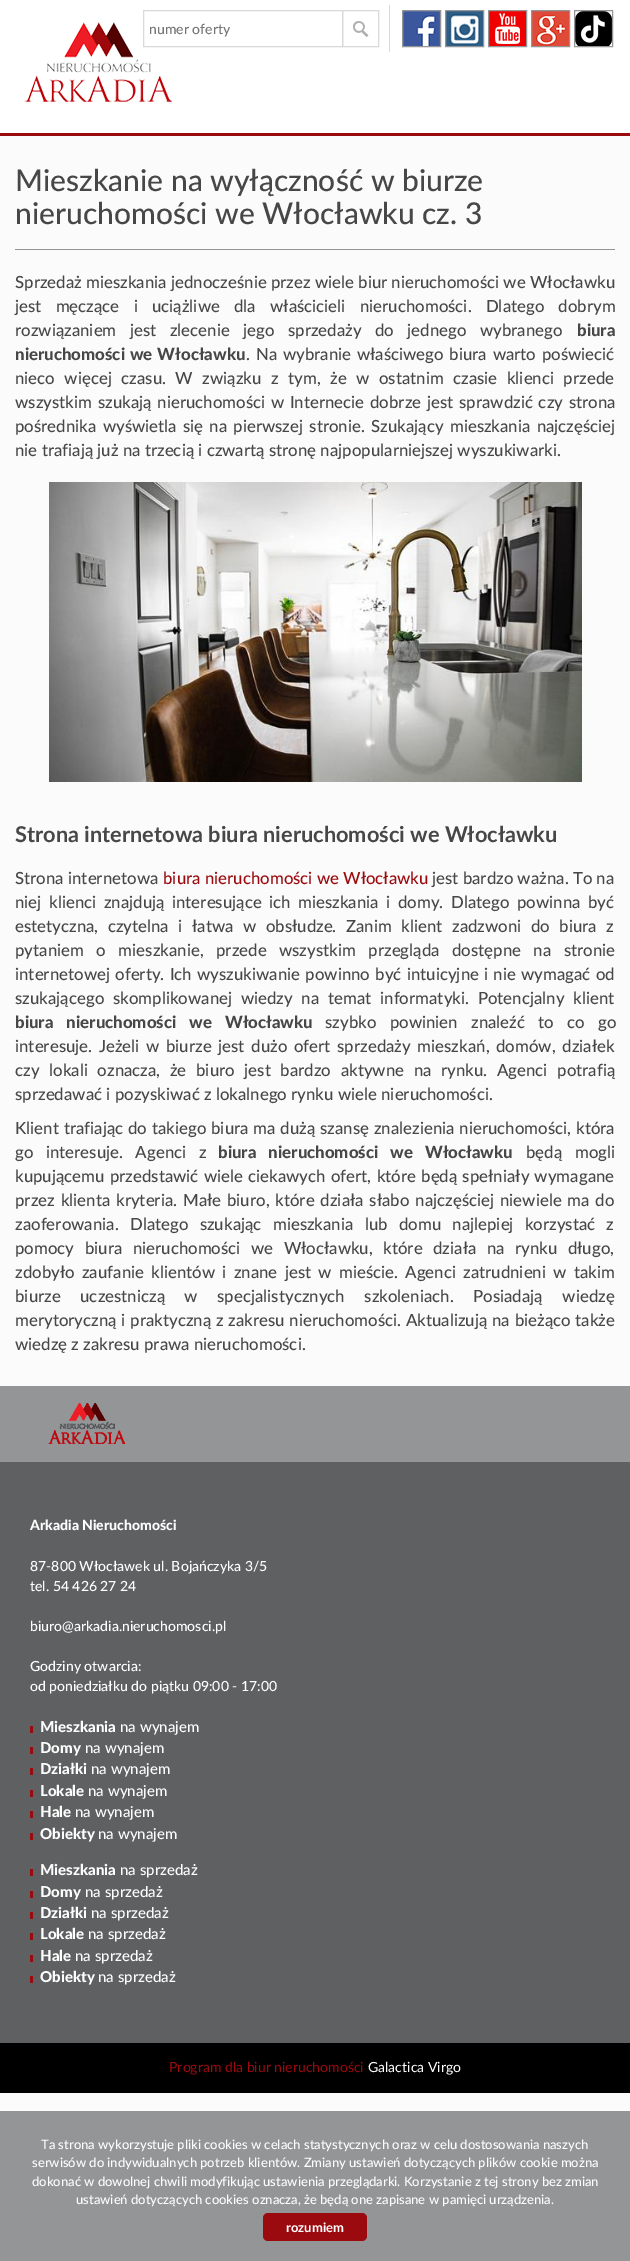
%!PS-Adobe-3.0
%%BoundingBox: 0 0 630 2261
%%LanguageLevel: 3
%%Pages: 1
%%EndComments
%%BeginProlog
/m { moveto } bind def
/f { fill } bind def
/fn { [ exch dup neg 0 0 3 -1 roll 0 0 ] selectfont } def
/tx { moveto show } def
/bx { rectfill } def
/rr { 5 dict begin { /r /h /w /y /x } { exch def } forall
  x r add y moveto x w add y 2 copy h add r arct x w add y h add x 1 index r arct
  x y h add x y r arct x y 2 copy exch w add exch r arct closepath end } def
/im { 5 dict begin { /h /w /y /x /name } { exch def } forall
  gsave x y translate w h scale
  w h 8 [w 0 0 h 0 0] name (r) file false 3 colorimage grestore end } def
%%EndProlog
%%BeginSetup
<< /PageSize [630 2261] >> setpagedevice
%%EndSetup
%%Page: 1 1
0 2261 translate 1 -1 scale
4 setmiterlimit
0.984 setgray
0 0 630 2261 bx
1 setgray
0 0 630 133 bx
0.608 0.039 0.059 setrgbcolor
0 133 630 3 bx
(image0.raw) 24 22 148 80 im
(image1.raw) 353 21 16 16 im
0.851 setgray
342.5 10.5 36 36 rectstroke
143.5 10.5 199 36 rectstroke
/Lato-Medium 14 fn
0.459 setgray
(numer oferty) 149 34 tx
0.851 setgray
389 5 1 47 bx
(image2.raw) 403 11 37 35 im
0.576 0.584 0.592 setrgbcolor
402.5 10.5 38 36 rectstroke
(image3.raw) 446 11 37 35 im
445.5 10.5 38 36 rectstroke
(image4.raw) 489 11 37 35 im
488.5 10.5 38 36 rectstroke
(image5.raw) 532 11 37 35 im
531.5 10.5 38 36 rectstroke
(image6.raw) 575 11 37 35 im
574.5 10.5 38 36 rectstroke
15 249 600 1 bx
/Lato-Medium 30 fn
0.278 setgray
(Mieszkanie na wyłączność w biurze) 15 191 tx
(nieruchomości we Włocławku cz. 3) 15 224 tx
/Lato-Medium 16.8 fn
(Sprzedaż mieszkania jednocześnie przez wiele biur nieruchomości we Włocławku) 15 288 tx
15 312 m 10 0 32 (jest męczące i uciążliwe dla właścicieli nieruchomości. Dlatego dobrym) widthshow
15 336 m 9.25 0 32 (rozwiązaniem jest zlecenie jego sprzedaży do jednego wybranego) widthshow
/Lato-Black 16.8 fn
(biura) 577 336 tx
15 360 m 1 0 32 (nieruchomości we Włocławku) widthshow
/Lato-Medium 16.8 fn
246 360 m 1.5 0 32 (. Na wybranie właściwego biura warto poświecić) widthshow
15 384 m 5.25 0 32 (nieco więcej czasu. W związku z tym, że w ostatnim czasie klienci przede) widthshow
15 408 m 1.5 0 32 (wszystkim szukają nieruchomości w Internecie dobrze jest sprawdzić czy strona) widthshow
15 432 m 2 0 32 (pośrednika wyświetla się na pierwszej stronie. Szukający mieszkania najczęściej) widthshow
(nie trafiają już na trzecią i czwartą stronę najpopularniejszej wyszukiwarki.) 15 456 tx
(image7.raw) 49 482 533 300 im
/Lato-Bold 21.8 fn
(Strona internetowa biura nieruchomości we Włocławku) 15 842 tx
/Lato-Medium 16.8 fn
(Strona internetowa) 15 884 tx
0.608 0.039 0.059 setrgbcolor
(biura nieruchomości we Włocławku) 163 884 tx
0.278 setgray
(jest bardzo ważna. To na) 432 884 tx
15 908 m 3.25 0 32 (niej klienci znajdują interesujące ich mieszkania i domy. Dlatego powinna być) widthshow
15 932 m 5.25 0 32 (estetyczna, czytelna i łatwa w obsłudze. Zanim klient zadzwoni do biura z) widthshow
15 956 m 8.25 0 32 (pytaniem o mieszkanie, przede wszystkim przegląda dostępne na stronie) widthshow
15 980 m 1 0 32 (internetowej oferty. Ich wyszukiwanie powinno być intuicyjne i nie wymagać od) widthshow
15 1004 m 4.5 0 32 (szukającego skomplikowanej wiedzy na temat informatyki. Potencjalny klient) widthshow
/Lato-Black 16.8 fn
15 1028 m 9 0 32 (biura nieruchomości we Włocławku) widthshow
/Lato-Medium 16.8 fn
325 1028 m 9 0 32 (szybko powinien znaleźć to co go) widthshow
15 1052 m 2.4 0 32 (interesuje. Jeżeli w biurze jest dużo ofert sprzedaży mieszkań, domów, działek) widthshow
15 1076 m 5.4 0 32 (czy lokali oznacza, że biuro jest bardzo aktywne na rynku. Agenci potrafią) widthshow
(sprzedawać i pozyskiwać z lokalnego rynku wiele nieruchomości.) 15 1100 tx
15 1134 m 0.6 0 32 (Klient trafiając do takiego biura ma dużą szansę znalezienia nieruchomości, która) widthshow
15 1158 m 8.25 0 32 (go interesuje. Agenci z) widthshow
/Lato-Black 16.8 fn
218 1158 m 8 0 32 (biura nieruchomości we Włocławku) widthshow
/Lato-Medium 16.8 fn
526 1158 m 8.25 0 32 (będą mogli) widthshow
15 1182 m 1 0 32 (kupującemu przedstawić wiele ciekawych ofert, które będą spełniały wymagane) widthshow
15 1206 m 1.6 0 32 (przez klienta kryteria. Małe biuro, które działa słabo najczęściej niewiele ma do) widthshow
15 1230 m 7 0 32 (zaoferowania. Dlatego szukając mieszkania lub domu najlepiej korzystać z) widthshow
15 1254 m 6.25 0 32 (pomocy biura nieruchomości we Włocławku, które działa na rynku długo,) widthshow
15 1278 m 3 0 32 (zdobyło zaufanie klientów i znane jest w mieście. Agenci zatrudnieni w takim) widthshow
15 1302 m 15.25 0 32 (biurze uczestniczą w specjalistycznych szkoleniach. Posiadają wiedzę) widthshow
15 1326 m 0.5 0 32 (merytoryczną i praktyczną z zakresu nieruchomości. Aktualizują na bieżąco także) widthshow
(wiedzę z zakresu prawa nieruchomości.) 15 1350 tx
0.576 0.584 0.592 setrgbcolor
0 1386 630 76 bx
(image8.raw) 48 1403 77 41 im
0.373 0.376 0.38 setrgbcolor
0 1462 630 581 bx
/Lato-Black 14 fn
1 setgray
(Arkadia Nieruchomości) 30 1530 tx
/Lato-Medium 14 fn
(87-800 Włocławek ul. Bojańczyka 3/5) 30 1571 tx
(tel. 54 426 27 24) 30 1591 tx
(biuro@arkadia.nieruchomosci.pl) 30 1631 tx
(Godziny otwarcia:) 30 1671 tx
(od poniedziałku do piątku 09:00 - 17:00) 30 1691 tx
0.608 0.039 0.059 setrgbcolor
30 1726 3 7 bx
/Lato-Black 15 fn
1 setgray
(Mieszkania) 40 1732 tx
/Lato-Medium 15 fn
(na wynajem) 120 1732 tx
0.608 0.039 0.059 setrgbcolor
30 1747 3 7 bx
/Lato-Black 15 fn
1 setgray
(Domy) 40 1753 tx
/Lato-Medium 15 fn
(na wynajem) 85 1753 tx
0.608 0.039 0.059 setrgbcolor
30 1768 3 7 bx
/Lato-Black 15 fn
1 setgray
(Działki) 40 1774 tx
/Lato-Medium 15 fn
(na wynajem) 91 1774 tx
0.608 0.039 0.059 setrgbcolor
30 1790 3 7 bx
/Lato-Black 15 fn
1 setgray
(Lokale) 40 1796 tx
/Lato-Medium 15 fn
(na wynajem) 88 1796 tx
0.608 0.039 0.059 setrgbcolor
30 1811 3 7 bx
/Lato-Black 15 fn
1 setgray
(Hale) 40 1817 tx
/Lato-Medium 15 fn
(na wynajem) 75 1817 tx
0.608 0.039 0.059 setrgbcolor
30 1833 3 7 bx
/Lato-Black 15 fn
1 setgray
(Obiekty) 40 1839 tx
/Lato-Medium 15 fn
(na wynajem) 98 1839 tx
0.608 0.039 0.059 setrgbcolor
30 1869 3 7 bx
/Lato-Black 15 fn
1 setgray
(Mieszkania) 40 1875 tx
/Lato-Medium 15 fn
(na sprzedaż) 120 1875 tx
0.608 0.039 0.059 setrgbcolor
30 1891 3 7 bx
/Lato-Black 15 fn
1 setgray
(Domy) 40 1897 tx
/Lato-Medium 15 fn
(na sprzedaż) 85 1897 tx
0.608 0.039 0.059 setrgbcolor
30 1912 3 7 bx
/Lato-Black 15 fn
1 setgray
(Działki) 40 1918 tx
/Lato-Medium 15 fn
(na sprzedaż) 91 1918 tx
0.608 0.039 0.059 setrgbcolor
30 1933 3 7 bx
/Lato-Black 15 fn
1 setgray
(Lokale) 40 1939 tx
/Lato-Medium 15 fn
(na sprzedaż) 88 1939 tx
0.608 0.039 0.059 setrgbcolor
30 1955 3 7 bx
/Lato-Black 15 fn
1 setgray
(Hale) 40 1961 tx
/Lato-Medium 15 fn
(na sprzedaż) 75 1961 tx
0.608 0.039 0.059 setrgbcolor
30 1976 3 7 bx
/Lato-Black 15 fn
1 setgray
(Obiekty) 40 1982 tx
/Lato-Medium 15 fn
(na sprzedaż) 98 1982 tx
0 setgray
0 2043 630 50 bx
/Lato-Regular 14 fn
0.608 0.039 0.059 setrgbcolor
(Program dla biur nieruchomości) 169 2072 tx
1 setgray
(Galactica Virgo) 368 2072 tx
0.576 0.584 0.592 setrgbcolor
0 2111 630 150 bx
/Lato-Medium 13 fn
1 setgray
(Ta strona wykorzystuje pliki cookies w celach statystycznych oraz w celu dostosowania naszych) 41 2149 tx
(serwisów do indywidualnych potrzeb klientów. Zmiany ustawień dotyczących plików cookie można) 32 2167 tx
(dokonać w dowolnej chwili modyfikując ustawienia przeglądarki. Korzystanie z tej strony bez zmian) 32 2186 tx
(ustawień dotyczących cookies oznacza, że będą one zapisane w pamięci urządzenia.) 76 2204 tx
0.608 0.039 0.059 setrgbcolor
263 2213 104 28 5 rr f
/Lato-Bold 13 fn
1 setgray
(rozumiem) 286 2232 tx
showpage
%%EOF
